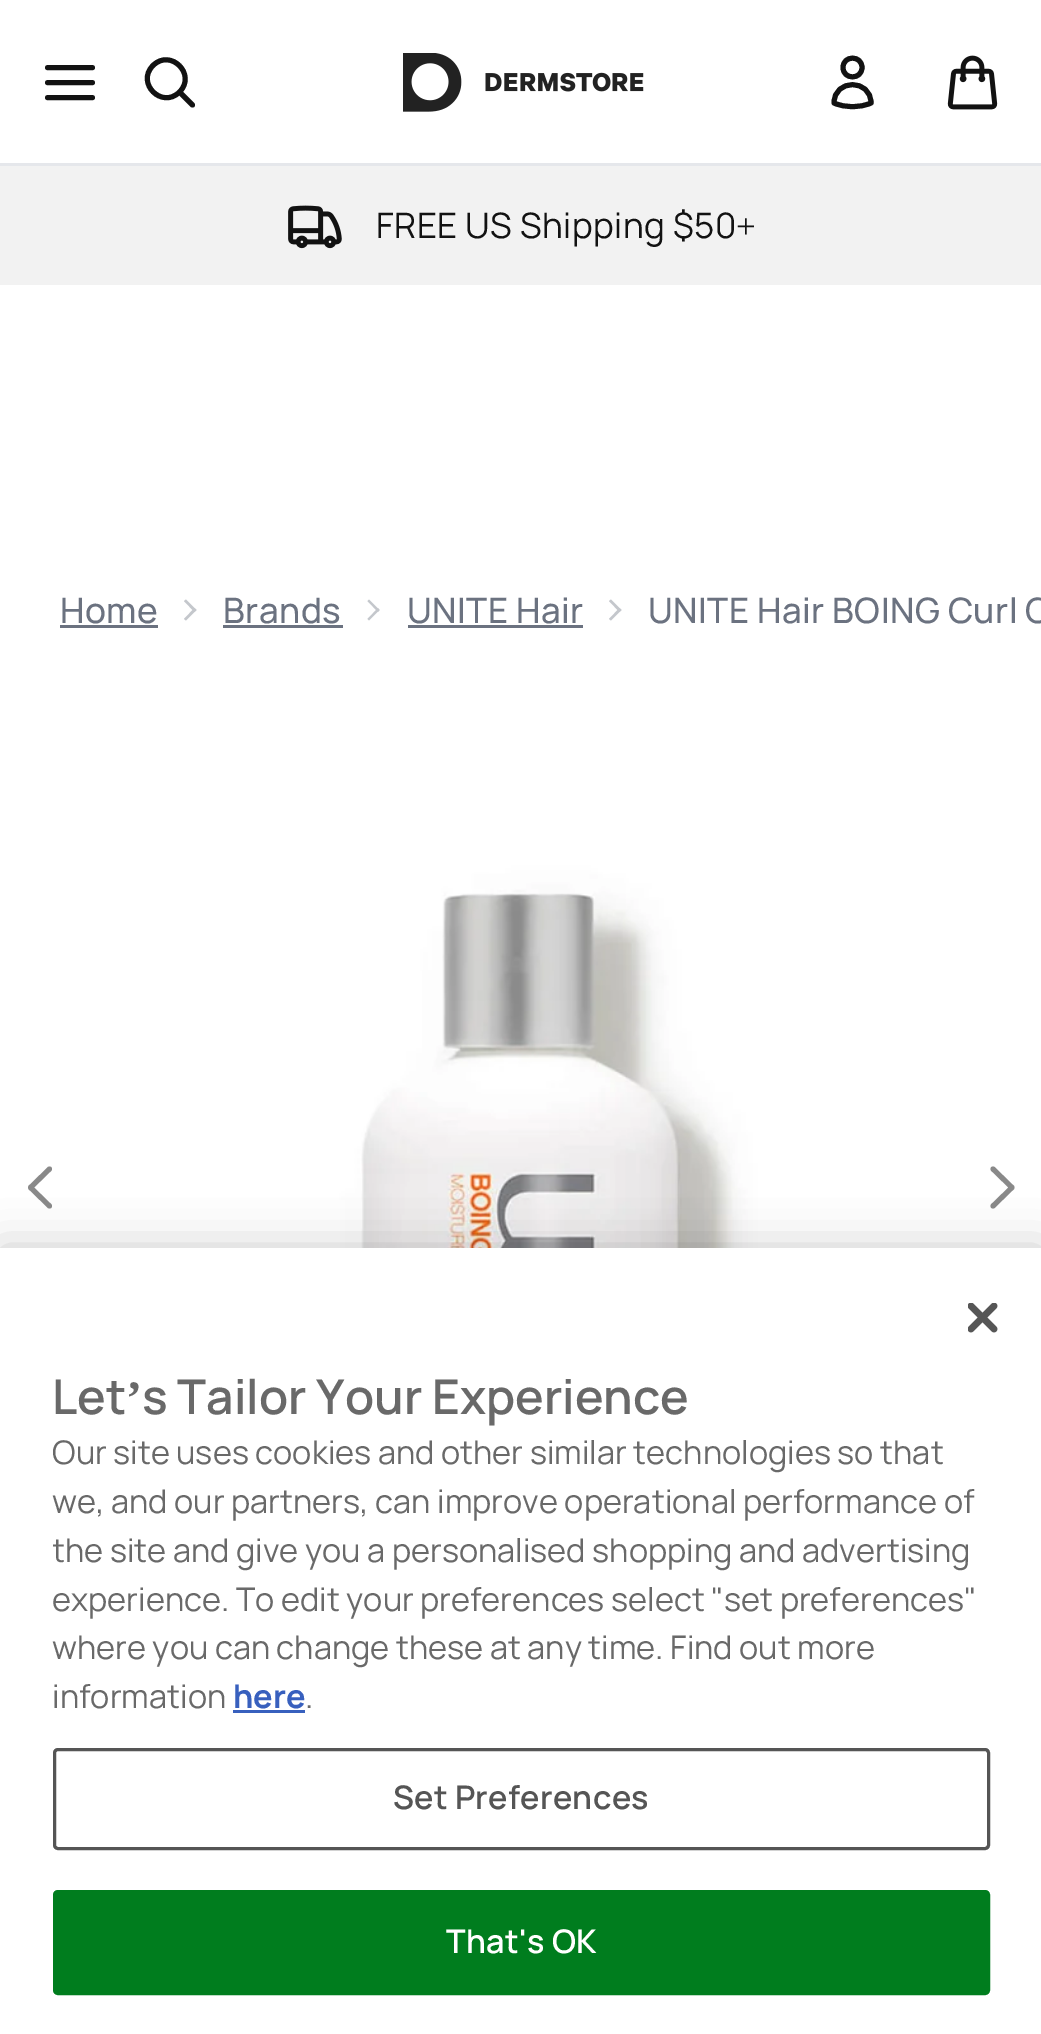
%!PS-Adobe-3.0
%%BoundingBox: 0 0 1041 2034
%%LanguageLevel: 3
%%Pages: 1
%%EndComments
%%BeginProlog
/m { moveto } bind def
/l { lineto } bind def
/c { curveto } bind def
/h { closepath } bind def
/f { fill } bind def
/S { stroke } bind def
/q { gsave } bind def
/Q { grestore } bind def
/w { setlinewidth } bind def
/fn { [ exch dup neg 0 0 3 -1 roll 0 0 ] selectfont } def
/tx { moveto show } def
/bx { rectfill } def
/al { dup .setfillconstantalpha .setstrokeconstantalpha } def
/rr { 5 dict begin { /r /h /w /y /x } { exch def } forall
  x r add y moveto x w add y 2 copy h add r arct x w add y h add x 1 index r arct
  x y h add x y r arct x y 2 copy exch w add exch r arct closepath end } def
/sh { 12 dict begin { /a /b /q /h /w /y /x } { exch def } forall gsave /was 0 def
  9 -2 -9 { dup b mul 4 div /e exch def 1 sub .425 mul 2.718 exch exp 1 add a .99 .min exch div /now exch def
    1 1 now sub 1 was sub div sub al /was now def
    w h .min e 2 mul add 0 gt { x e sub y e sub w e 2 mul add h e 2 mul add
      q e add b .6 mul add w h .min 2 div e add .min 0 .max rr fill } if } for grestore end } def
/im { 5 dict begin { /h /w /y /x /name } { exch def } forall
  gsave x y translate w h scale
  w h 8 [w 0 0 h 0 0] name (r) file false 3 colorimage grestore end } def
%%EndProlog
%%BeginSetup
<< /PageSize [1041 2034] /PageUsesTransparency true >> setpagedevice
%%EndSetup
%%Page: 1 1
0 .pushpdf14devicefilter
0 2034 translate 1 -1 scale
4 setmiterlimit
1 setgray
0 0 1041 2034 bx
0.071 setgray
5 w
1 setlinecap
1 setlinejoin
47.5 82.5 m 92.5 82.5 l 47.5 67.5 m 92.5 67.5 l 47.5 97.5 m 92.5 97.5 l S
192.5 105 m 179.5 92 l 179.5 92 m 197 74.5 170.5 48 153 65.5 c 135.5 83 162 109.5 179.5 92 c h S
(image0.raw) 403 53 241 59 im
862 67.5 m 862 80 843 80 843 67.5 c 843 55 862 55 862 67.5 c h 834 103 m 834 78.5 871 78.5 871 103 c 859.5 108 845.5 108 834 103 c h S
(image1.raw) 947 55 51 55 im
0.949 setgray
0 166 1041 119 bx
0.898 0.906 0.922 setrgbcolor
0 163 1041 3 bx
(image2.raw) 288 205 54 44 im
/Manrope-Regular 35 fn
0.071 setgray
376 238 m 0.5 0 (FREE US Shipping $50) ashow
/LiberationSerif-Regular 35 fn
736 238 m 0.5 0 (+) ashow
/Manrope-Medium 35 fn
0.42 0.447 0.502 setrgbcolor
60 623 m 0.5 0 (Home) ashow
60 625 98 3 bx
0.769 0.78 0.8 setrgbcolor
186 599.5 m 196.5 610 l 194.5 612 l 184 601 l h f
194.5 608 m 196.5 610 l 186 620.5 l 184 619 l h f
0.42 0.447 0.502 setrgbcolor
223 623 m 0.5 0 (Brands) ashow
223 625 120 3 bx
0.769 0.78 0.8 setrgbcolor
369 599.5 m 379.5 610 l 378 612 l 367.5 601 l h f
378 608 m 379.5 610 l 369 620.5 l 367.5 619 l h f
0.42 0.447 0.502 setrgbcolor
407 623 m 0.5 0 (UNITE Hair) ashow
408 625 175 3 bx
0.769 0.78 0.8 setrgbcolor
611 599.5 m 621.5 610 l 619.5 612 l 609 601 l h f
619.5 608 m 621.5 610 l 611 620.5 l 609 619 l h f
0.42 0.447 0.502 setrgbcolor
648 623 m 0.5 0 (UNITE Hair BOING Curl C) ashow
(image3.raw) 0 665 1041 583 im
0.537 setgray
49.5 1206 m 30.5 1187.5 l 49.5 1169 l S
993 1169 m 1012 1187.5 l 993 1206 l S
0 setgray
0 1248 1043 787 0 22.5 0.2 sh
1 setgray
0 1248 1041 786 bx
(image4.raw) 968 1303 30 30 im
/Manrope-SemiBold 48 fn
0.412 setgray
(Let) 52 1414 tx
/LiberationSerif-Bold 48 fn
(’) 126 1414 tx
/Manrope-SemiBold 48 fn
(s Tailor Your Experience) 142 1414 tx
/Manrope-Regular 32.5 fn
(Our site uses cookies and other similar technologies so that) 52 1464 tx
(we, and our partners, can improve operational performance of) 52 1513 tx
q
53 1368 937 355 rectclip
(the site and give you a personalised shopping and advertising) 52 1562 tx
Q
(experience. To edit your preferences select "set preferences") 52 1611 tx
(where you can change these at any time. Find out more) 52 1659 tx
(information) 52 1708 tx
/Manrope-Bold 32.5 fn
0.22 0.376 0.745 setrgbcolor
(here) 233 1708 tx
233 1710 72 3 bx
/Manrope-Regular 32.5 fn
0.412 setgray
(.) 305 1708 tx
0.333 setgray
3 w
0 setlinecap
0 setlinejoin
54.5 1749.5 934 99 3.5 rr S
/Manrope-SemiBold 32.5 fn
393 1809 m 0.3 0 (Set Preferences) ashow
0 0.49 0.118 setrgbcolor
54.5 1891.5 934 102 3.5 rr q f Q
S
1 setgray
446 1953 m 0.3 0 (That's OK) ashow
.poppdf14devicefilter showpage
%%EOF
